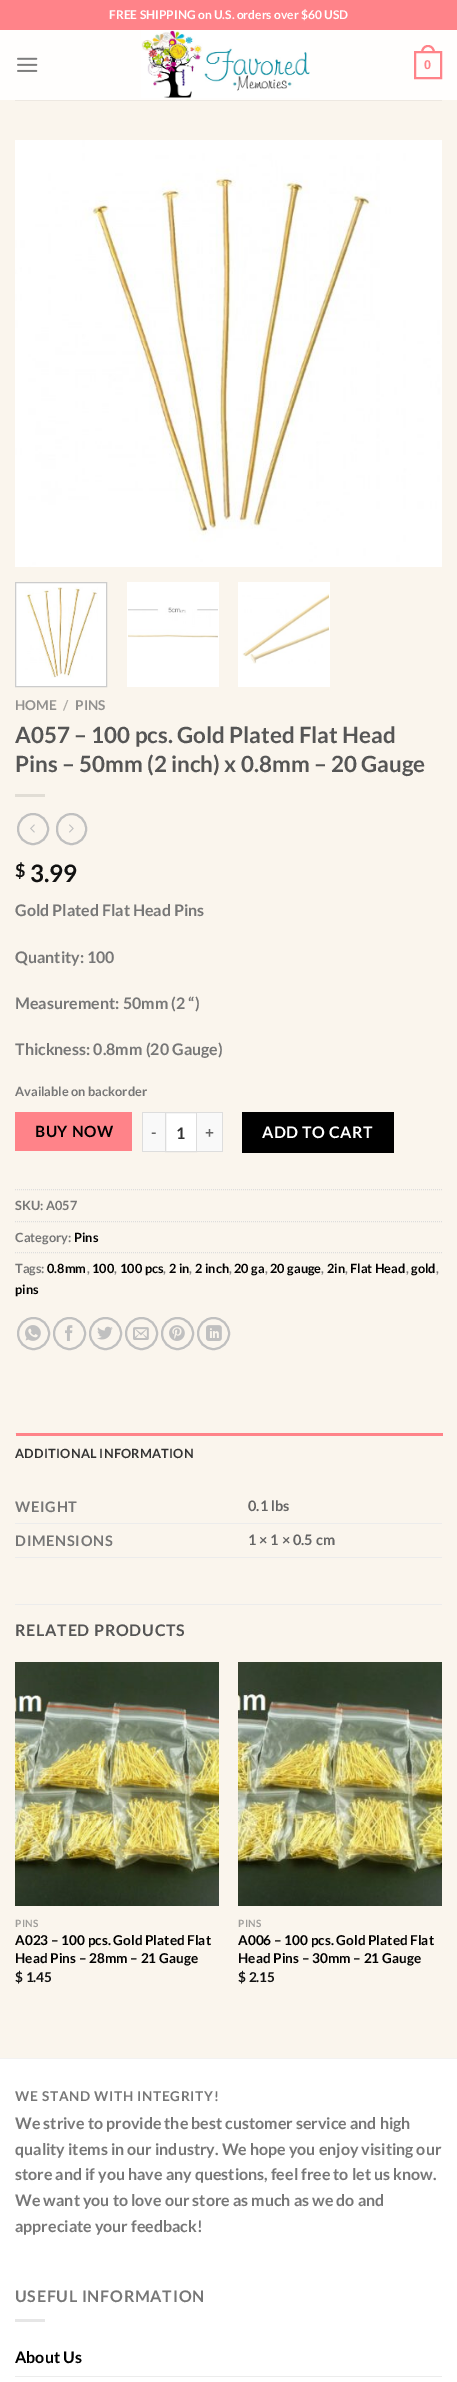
%!PS-Adobe-3.0
%%BoundingBox: 0 0 457 2382
%%LanguageLevel: 3
%%Pages: 1
%%EndComments
%%BeginProlog
/m { moveto } bind def
/l { lineto } bind def
/c { curveto } bind def
/h { closepath } bind def
/f { fill } bind def
/S { stroke } bind def
/q { gsave } bind def
/Q { grestore } bind def
/w { setlinewidth } bind def
/fn { [ exch dup neg 0 0 3 -1 roll 0 0 ] selectfont } def
/tx { moveto show } def
/bx { rectfill } def
/ci { newpath 0 360 arc closepath } def
/rr { 5 dict begin { /r /h /w /y /x } { exch def } forall
  x r add y moveto x w add y 2 copy h add r arct x w add y h add x 1 index r arct
  x y h add x y r arct x y 2 copy exch w add exch r arct closepath end } def
/im { 5 dict begin { /h /w /y /x /name } { exch def } forall
  gsave x y translate w h scale
  w h 8 [w 0 0 h 0 0] name (r) file false 3 colorimage grestore end } def
%%EndProlog
%%BeginSetup
<< /PageSize [457 2382] >> setpagedevice
%%EndSetup
%%Page: 1 1
0 2382 translate 1 -1 scale
4 setmiterlimit
0.98 0.961 0.929 setrgbcolor
0 0 457 2382 bx
1 0.514 0.537 setrgbcolor
0 0 457 30 bx
/Lato-Bold 12 fn
1 setgray
(FREE SHIPPING on U.S. orders over $60 USD) 109 19 tx
1 0.996 0.992 setrgbcolor
0 30 457 70 bx
(image0.raw) 17 57 21 15 im
(image1.raw) 141 30 169 68 im
1 0.514 0.537 setrgbcolor
2 w
415 52 26 26 rectstroke
428 45 m 432.5 45 435 49 435 53 c 421 53 l 421 49 423.5 45 428 45 c h 428 47 m 431.5 47 433 50 433 53 c 423 53 l 423 50 424.5 47 428 47 c h eofill
/LiberationSans-Bold 12.75 fn
(0) 424 69 tx
0.929 0.91 0.882 setrgbcolor
15 100 427 1 bx
(image2.raw) 15 140 427 427 im
1 setgray
15.5 582.5 m 106.5 582.5 l 106.5 686.5 l 15.5 686.5 l h q f Q
0.8 setgray
1 w
S
(image3.raw) 25 587 73 91 im
1 setgray
127 582 92 105 bx
(image4.raw) 128 607 90 31 im
238 582 92 105 bx
(image5.raw) 242 593 87 71 im
/Lato-Bold 13.6 fn
0.573 0.569 0.561 setrgbcolor
(HOME) 15 710 tx
0.682 0.671 0.651 setrgbcolor
(/) 63 710 tx
0.573 0.569 0.561 setrgbcolor
(PINS) 75 710 tx
/Lato-Bold 22.4 fn
0.333 setgray
(A057 – 100 pcs. Gold Plated Flat Head) 15 743 tx
(Pins – 50mm \(2 inch\) x 0.8mm – 20 Gauge) 15 772 tx
0.882 0.867 0.835 setrgbcolor
15 794 30 3 bx
0.753 setgray
2 w
33 829 15 ci S
(image6.raw) 30 824 5 9 im
57 814 29 30 14.5 rr S
(image7.raw) 69 824 5 9 im
/Lato-Bold 18 fn
0.067 setgray
($) 15 877 tx
/Lato-Bold 24 fn
(3.99) 30 882 tx
/Lato-Bold 16 fn
0.467 setgray
(Gold Plated Flat Head Pins) 15 916 tx
(Quantity: 100) 15 963 tx
(Measurement: 50mm \(2 “\)) 15 1009 tx
(Thickness: 0.8mm \(20 Gauge\)) 15 1055 tx
/Lato-Bold 12.75 fn
(Available on backorder) 15 1096 tx
1 0.514 0.537 setrgbcolor
15 1112 117 39 bx
/Lato-Bold 15.5 fn
0 setgray
35 1137 m 0.5 0 (BUY NOW) ashow
0.976 setgray
143 1113 22 38 bx
0.867 setgray
142 1112 23 1 bx
142 1151 23 1 bx
142 1112 1 40 bx
0.4 setgray
151 1138 m 0.5 0 (-) ashow
1 setgray
165.5 1112.5 m 196.5 1112.5 l 196.5 1151.5 l 165.5 1151.5 l h q f Q
0.867 setgray
1 w
S
/Lato-Bold 16 fn
0.2 setgray
(1) 176 1139 tx
0.976 setgray
197 1113 25 38 bx
0.867 setgray
197 1112 26 1 bx
222 1112 1 40 bx
197 1151 26 1 bx
/Lato-Bold 15.5 fn
0.4 setgray
205 1138 m 0.5 0 (+) ashow
0 setgray
242 1112 152 41 bx
/Lato-Bold 16 fn
1 setgray
262 1138 m 0.5 0 (ADD TO CART) ashow
0.867 setgray
[1 1] 0 setdash
15 1189.5 m 442 1189.5 l S
/Lato-Bold 12.75 fn
0.467 setgray
(SKU: A057) 15 1210 tx
0.867 setgray
15 1221.5 m 442 1221.5 l S
0.467 setgray
(Category:) 15 1242 tx
0 setgray
(Pins) 74 1242 tx
0.867 setgray
15 1252.5 m 442 1252.5 l S
0.467 setgray
(Tags:) 15 1273 tx
0 setgray
(0.8mm) 47 1273 tx
0.467 setgray
(,) 87 1273 tx
0 setgray
(100) 92 1273 tx
0.467 setgray
(,) 114 1273 tx
0 setgray
(100 pcs) 120 1273 tx
0.467 setgray
(,) 163 1273 tx
0 setgray
(2 in) 169 1273 tx
0.467 setgray
(,) 189 1273 tx
0 setgray
(2 inch) 195 1273 tx
0.467 setgray
(,) 229 1273 tx
0 setgray
(20 ga) 234 1273 tx
0.467 setgray
(,) 265 1273 tx
0 setgray
(20 gauge) 270 1273 tx
0.467 setgray
(,) 321 1273 tx
0 setgray
(2in) 327 1273 tx
0.467 setgray
(,) 345 1273 tx
0 setgray
(Flat Head) 350 1273 tx
0.467 setgray
(,) 406 1273 tx
0 setgray
(gold) 411 1273 tx
0.467 setgray
(,) 436 1273 tx
0 setgray
(pins) 15 1294 tx
0.753 setgray
2 w
[] 0 setdash
33.5 1333.5 15.5 ci S
(image8.raw) 25 1325 16 16 im
69.5 1333.5 15.5 ci S
(image9.raw) 65 1325 8 16 im
105.5 1333.5 15.5 ci S
(image10.raw) 97 1326 16 14 im
141.5 1333.5 15.5 ci S
(image11.raw) 133 1327 16 13 im
177.5 1333.5 15.5 ci S
(image12.raw) 169 1325 16 16 im
213.5 1333.5 15.5 ci S
(image13.raw) 206 1325 16 16 im
0.925 setgray
15 1433 1 1 bx
1 0.514 0.537 setrgbcolor
16 1433 427 3 bx
0.2 setgray
15 1458 m 0.25 0 (ADDITIONAL INFORMATION) ashow
0.925 setgray
15 1523 427 1 bx
/Lato-Bold 14.5 fn
0.467 setgray
15 1512 m 0.75 0 (WEIGHT) ashow
0.4 setgray
(0.1 lbs) 248 1511 tx
0.925 setgray
15 1557 427 1 bx
0.467 setgray
15 1546 m 0.75 0 (DIMENSIONS) ashow
0.4 setgray
(1 × 1 × 0.5 cm) 248 1545 tx
0.925 setgray
15 1604 427 1 bx
/Lato-Bold 16 fn
0.333 setgray
15 1636 m 0.75 0 (RELATED PRODUCTS) ashow
(image14.raw) 15 1662 204 244 im
/Lato-Bold 10 fn
0.62 0.616 0.604 setrgbcolor
15 1927 m 0.5 0 (PINS) ashow
/Lato-Bold 13.6 fn
0 setgray
(A023 – 100 pcs. Gold Plated Flat) 15 1945 tx
(Head Pins – 28mm – 21 Gauge) 15 1963 tx
0.067 setgray
($ 1.45) 15 1982 tx
(image15.raw) 238 1662 204 244 im
/Lato-Bold 10 fn
0.62 0.616 0.604 setrgbcolor
238 1927 m 0.5 0 (PINS) ashow
/Lato-Bold 13.6 fn
0 setgray
(A006 – 100 pcs. Gold Plated Flat) 238 1945 tx
(Head Pins – 30mm – 21 Gauge) 238 1963 tx
0.067 setgray
($ 2.15) 238 1982 tx
1 setgray
0 2059 457 323 bx
0.949 setgray
0 2058 457 1 bx
0.467 setgray
15 2101 m 0.7 0 (WE STAND WITH INTEGRITY!) ashow
/Lato-Bold 16 fn
(We strive to provide the best customer service and high) 15 2129 tx
(quality items in our industry. We hope you enjoy visiting our) 15 2155 tx
(store and if you have any questions, feel free to let us know.) 15 2180 tx
(We want you to love our store as much as we do and) 15 2206 tx
(appreciate your feedback!) 15 2232 tx
15 2302 m 0.75 0 (USEFUL INFORMATION) ashow
0.902 setgray
15 2319 30 3 bx
0 setgray
(About Us) 15 2363 tx
0.925 setgray
15 2376 427 1 bx
showpage
%%EOF
